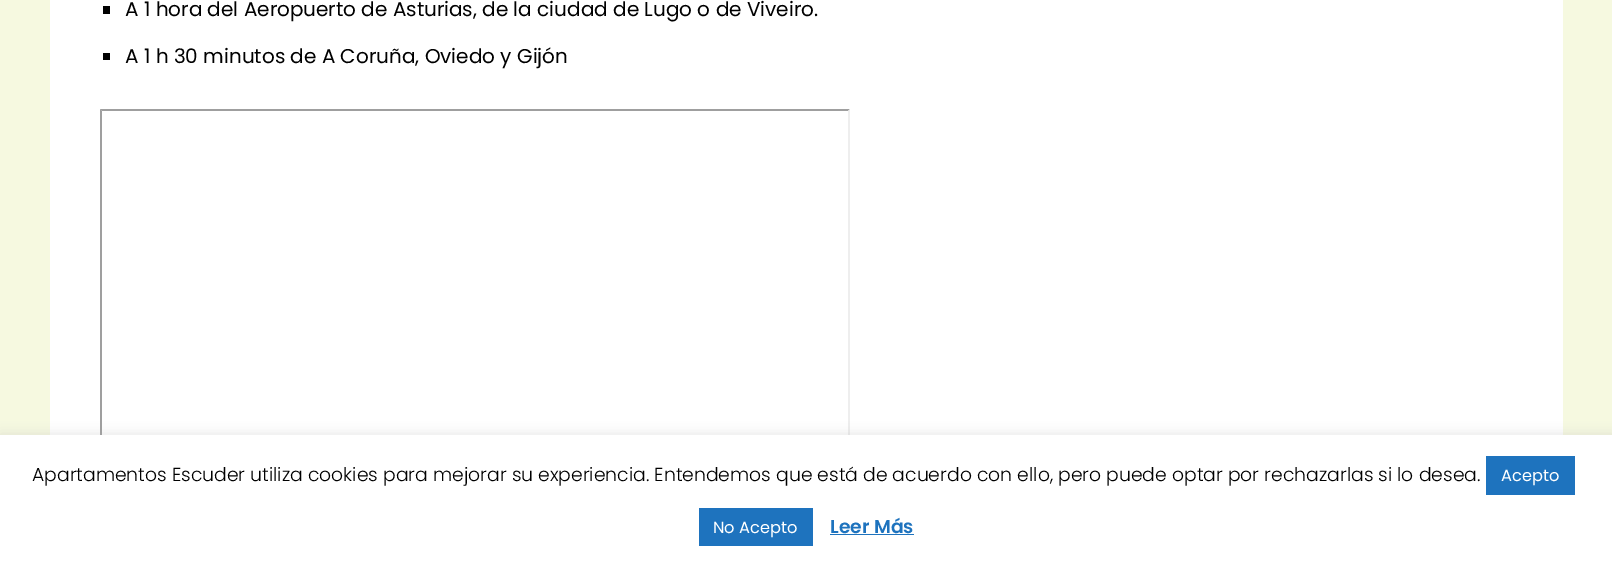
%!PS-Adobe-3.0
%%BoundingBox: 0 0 1612 567
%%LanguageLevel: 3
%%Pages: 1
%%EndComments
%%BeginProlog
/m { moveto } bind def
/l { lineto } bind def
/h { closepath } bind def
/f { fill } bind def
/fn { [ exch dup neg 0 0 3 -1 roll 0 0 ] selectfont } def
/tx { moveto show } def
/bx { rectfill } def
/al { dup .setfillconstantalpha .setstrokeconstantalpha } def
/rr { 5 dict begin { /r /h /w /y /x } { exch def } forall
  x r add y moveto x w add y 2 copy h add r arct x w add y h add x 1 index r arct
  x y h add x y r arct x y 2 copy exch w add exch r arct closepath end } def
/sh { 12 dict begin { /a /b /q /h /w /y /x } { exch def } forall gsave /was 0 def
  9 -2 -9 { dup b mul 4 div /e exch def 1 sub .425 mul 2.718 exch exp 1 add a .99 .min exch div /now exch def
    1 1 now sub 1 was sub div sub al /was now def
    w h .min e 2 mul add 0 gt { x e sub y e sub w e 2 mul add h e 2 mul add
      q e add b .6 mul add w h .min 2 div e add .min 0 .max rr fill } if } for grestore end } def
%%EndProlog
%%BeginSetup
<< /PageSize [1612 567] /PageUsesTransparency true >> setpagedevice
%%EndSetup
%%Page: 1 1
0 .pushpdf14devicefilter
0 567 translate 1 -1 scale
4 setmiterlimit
0.965 0.976 0.878 setrgbcolor
0 0 1612 567 bx
1 setgray
50 0 1513 435 bx
0 setgray
103 6 7 8 bx
/Poppins-Regular 20 fn
(A 1 hora del Aeropuerto de Asturias, de la ciudad de Lugo o de Viveiro.) 125 16 tx
103 53 7 7 bx
(A 1 h 30 minutos de A Coruña, Oviedo y Gijón) 125 63 tx
0.624 setgray
100 109 m 850 109 l 848 111 l 102 111 l h f
100 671 m 100 109 l 102 111 l 102 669 l h f
0.933 setgray
850 109 m 850 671 l 848 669 l 848 111 l h f
0.675 0.671 0.671 setrgbcolor
0 434 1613 132 0 6 0.3 sh
1 setgray
0 435 1612 132 bx
/Poppins-Light 18.75 fn
0 setgray
(Apartamentos Escuder utiliza cookies para mejorar su experiencia. Entendemos que está de acuerdo con ello, pero puede optar por rechazarlas si lo desea.) 32 481 tx
0.118 0.451 0.745 setrgbcolor
1486 456 89 39 bx
/Poppins-Regular 16.25 fn
1 setgray
(Acepto) 1501 481 tx
0.118 0.451 0.745 setrgbcolor
699 508 114 38 bx
1 setgray
(No Acepto) 713 533 tx
/Poppins-SemiBold 18.75 fn
0.118 0.451 0.745 setrgbcolor
(Leer Más) 830 533 tx
830 534 84 1 bx
.poppdf14devicefilter showpage
%%EOF
